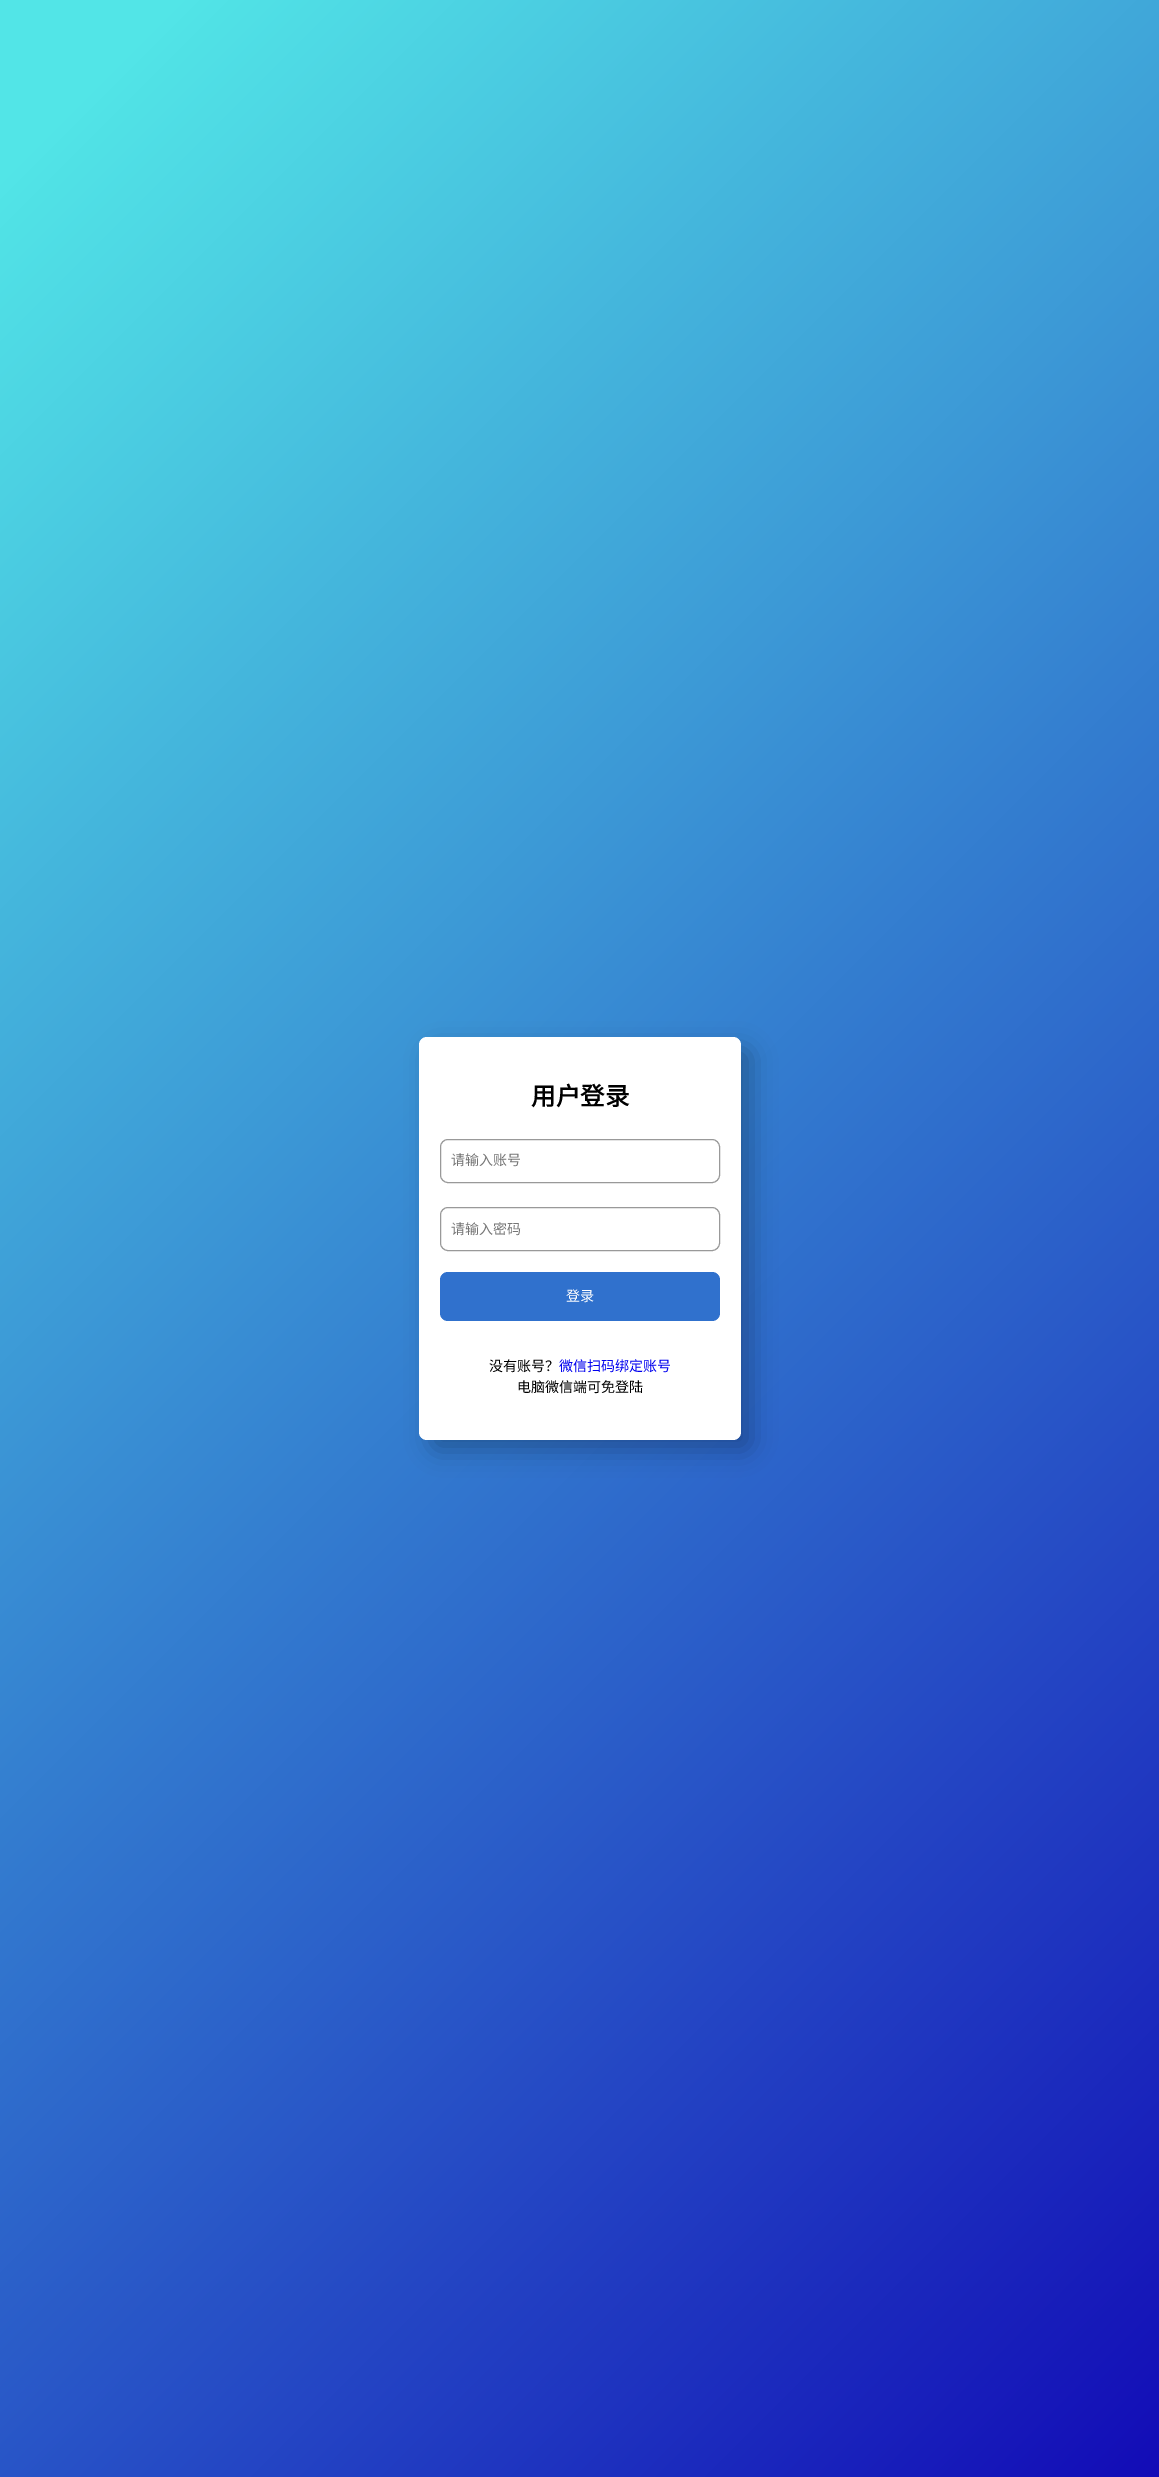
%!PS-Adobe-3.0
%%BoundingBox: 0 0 1159 2477
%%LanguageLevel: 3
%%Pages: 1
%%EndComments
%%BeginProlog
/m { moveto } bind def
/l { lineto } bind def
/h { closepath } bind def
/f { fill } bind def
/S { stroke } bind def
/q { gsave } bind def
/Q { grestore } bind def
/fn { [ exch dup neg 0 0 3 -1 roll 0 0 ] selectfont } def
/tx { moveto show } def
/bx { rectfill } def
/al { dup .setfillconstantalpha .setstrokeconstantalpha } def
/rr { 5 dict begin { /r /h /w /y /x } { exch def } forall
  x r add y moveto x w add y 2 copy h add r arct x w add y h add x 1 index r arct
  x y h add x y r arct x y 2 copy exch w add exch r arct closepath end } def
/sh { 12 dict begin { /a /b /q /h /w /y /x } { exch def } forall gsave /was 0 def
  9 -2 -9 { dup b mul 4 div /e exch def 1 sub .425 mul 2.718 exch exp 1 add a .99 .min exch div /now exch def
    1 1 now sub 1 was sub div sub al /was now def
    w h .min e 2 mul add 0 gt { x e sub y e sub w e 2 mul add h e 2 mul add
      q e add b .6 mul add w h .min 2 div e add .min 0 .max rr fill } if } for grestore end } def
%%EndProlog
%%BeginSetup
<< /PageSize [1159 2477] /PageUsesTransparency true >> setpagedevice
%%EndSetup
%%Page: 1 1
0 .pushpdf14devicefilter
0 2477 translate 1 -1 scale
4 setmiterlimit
1 setgray
0 0 1159 2477 bx
q 0 0 m 1159 0 l 1159 2477 l 0 2477 l h clip newpath
<< /ShadingType 2 /ColorSpace /DeviceRGB /Coords [-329 330 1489 2148] /Extend [true true] /Function << /FunctionType 3 /Domain [0 1] /Functions [<< /FunctionType 2 /Domain [0 1] /C0 [0.322 0.898 0.906] /C1 [0.322 0.898 0.906] /N 1 >> << /FunctionType 2 /Domain [0 1] /C0 [0.322 0.898 0.906] /C1 [0.075 0.047 0.718] /N 1 >>] /Bounds [0.05] /Encode [0 1 0 1] >> >> shfill Q
0 setgray
430 1048 322 403 8 12 0.25 sh
1 setgray
419 1037 322 403 8 rr f
/NotoSansCJKSC-Bold 24.5 fn
0 setgray
(用户登录) 531 1105 tx
0.6 setgray
440.5 1139.5 279 43 7.5 rr S
/NotoSansCJKSC-Regular 14 fn
0.459 setgray
(请输入账号) 451 1165 tx
0.6 setgray
440.5 1207.5 279 43 7.5 rr S
0.459 setgray
(请输入密码) 451 1234 tx
0.188 0.443 0.804 setrgbcolor
440 1272 280 49 8 rr f
1 setgray
(登录) 566 1301 tx
0 setgray
(没有账号？) 489 1371 tx
0 0 0.933 setrgbcolor
(微信扫码绑定账号) 559 1371 tx
0 setgray
(电脑微信端可免登陆) 517 1392 tx
.poppdf14devicefilter showpage
%%EOF
